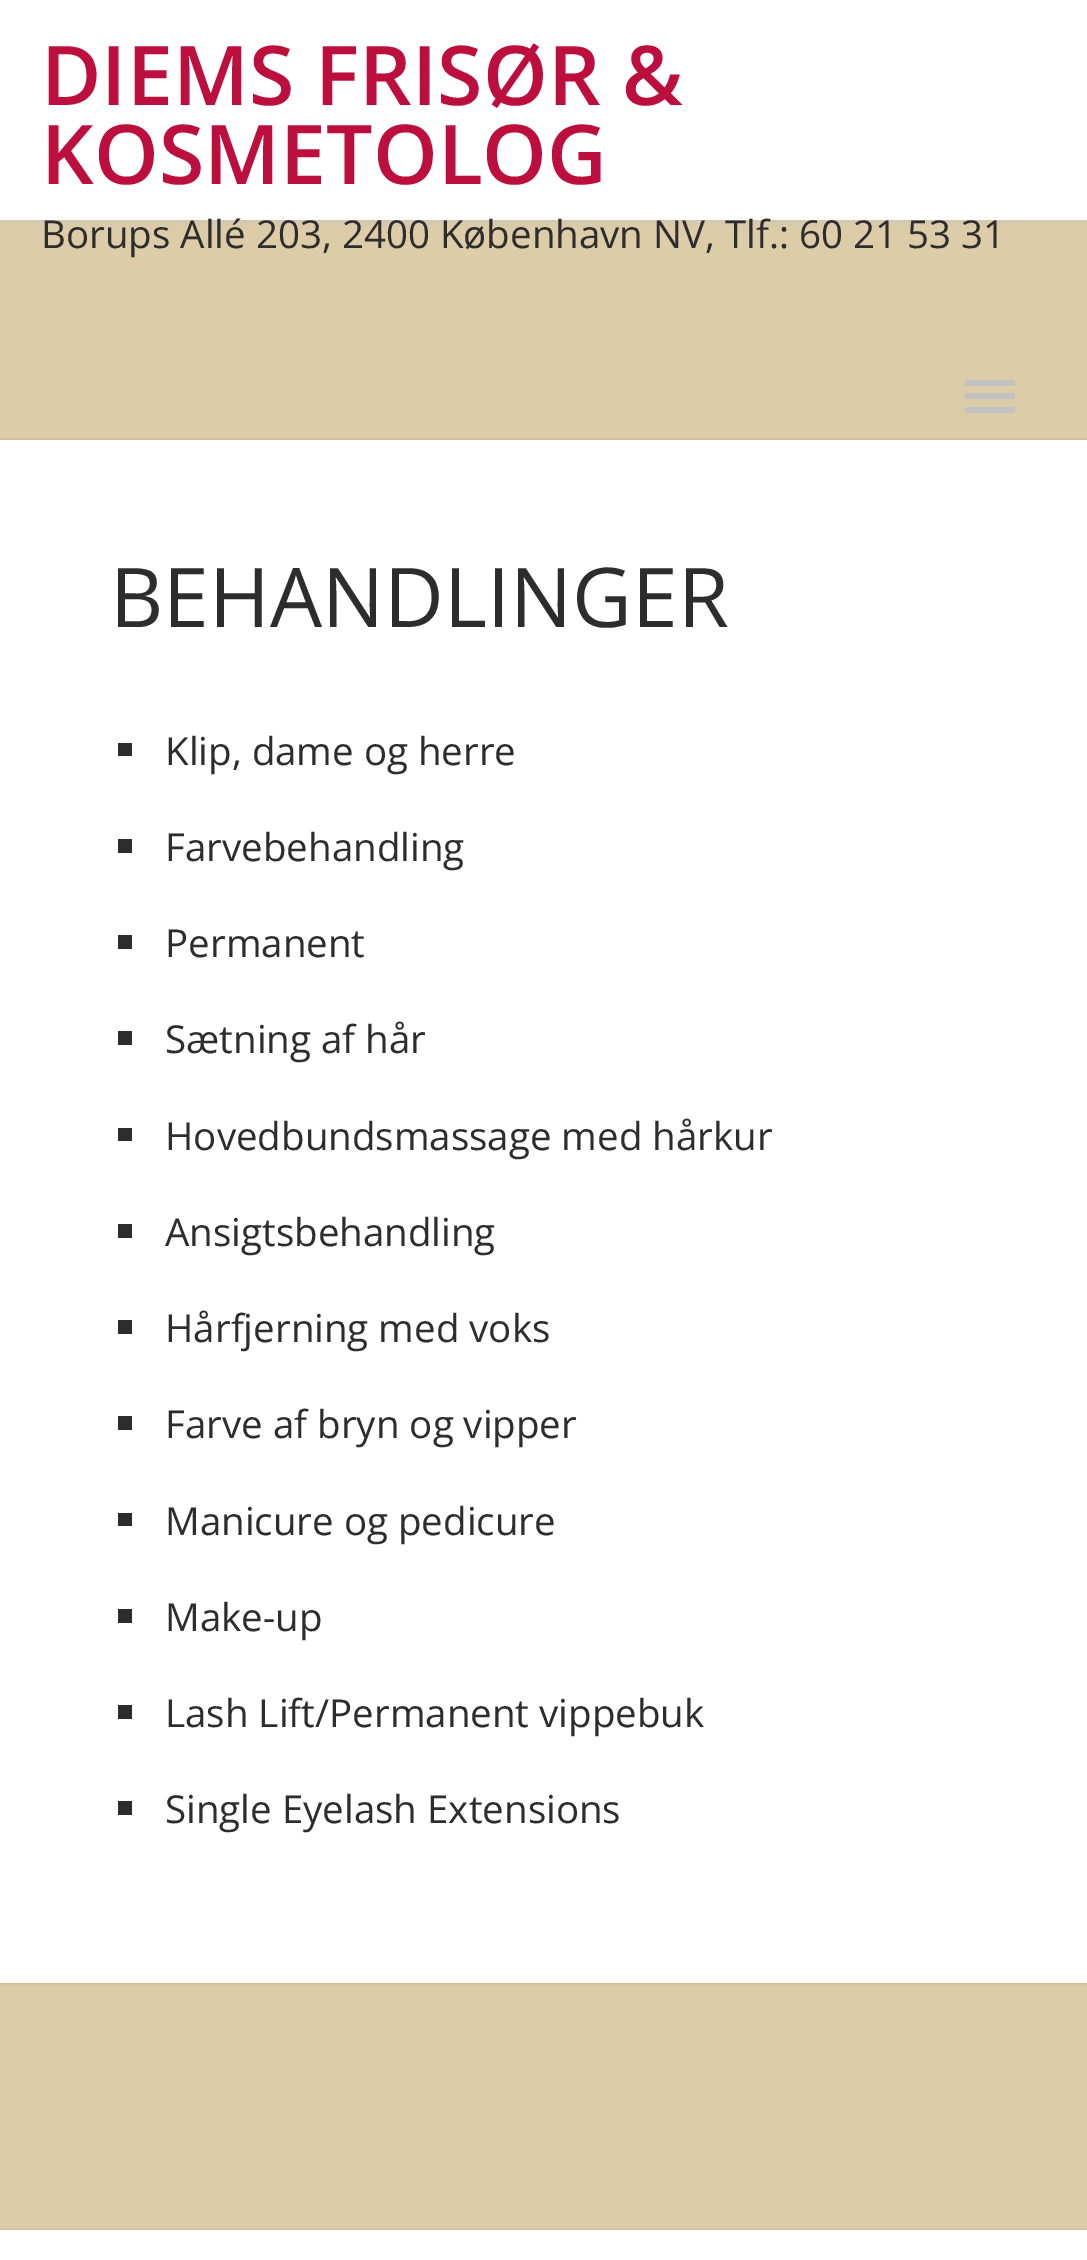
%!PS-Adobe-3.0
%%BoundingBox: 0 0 1087 2260
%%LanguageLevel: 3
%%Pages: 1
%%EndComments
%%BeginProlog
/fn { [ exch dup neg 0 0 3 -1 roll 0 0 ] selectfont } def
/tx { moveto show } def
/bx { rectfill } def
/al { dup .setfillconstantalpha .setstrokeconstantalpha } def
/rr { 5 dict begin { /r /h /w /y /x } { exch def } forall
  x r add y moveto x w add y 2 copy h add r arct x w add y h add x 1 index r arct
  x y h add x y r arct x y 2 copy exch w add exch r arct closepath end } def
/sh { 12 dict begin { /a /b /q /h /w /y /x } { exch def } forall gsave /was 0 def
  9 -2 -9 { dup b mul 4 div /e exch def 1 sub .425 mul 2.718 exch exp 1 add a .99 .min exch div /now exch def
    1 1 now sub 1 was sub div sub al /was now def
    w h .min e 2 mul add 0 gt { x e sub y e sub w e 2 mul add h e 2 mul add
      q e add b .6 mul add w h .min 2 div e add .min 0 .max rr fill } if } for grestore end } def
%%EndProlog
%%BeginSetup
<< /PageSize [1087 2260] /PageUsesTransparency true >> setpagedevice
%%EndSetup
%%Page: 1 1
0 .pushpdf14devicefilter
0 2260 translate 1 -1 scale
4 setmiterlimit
0.867 0.8 0.659 setrgbcolor
0 0 1087 2260 bx
0.745 setgray
0 3 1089 220 0 4 0.5 sh
1 setgray
0 0 1087 220 bx
/OpenSans-SemiBold 82.5 fn
0.737 0.059 0.239 setrgbcolor
(DIEMS FRISØR &) 41 105 tx
(KOSMETOLOG) 41 184 tx
/OpenSans-Regular 38.5 fn
0.176 setgray
(Borups Allé 203, 2400 København NV, Tlf.: 60 21 53 31) 41 248 tx
0.761 setgray
965 380 50 6 bx
965 393 50 6 bx
965 407 50 6 bx
0 setgray
0 440 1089 1543 0 1.5 0.15 sh
1 setgray
0 440 1087 1543 bx
/OpenSans-Regular 82.5 fn
0.176 setgray
(BEHANDLINGER) 110 627 tx
118 743 14 13 bx
/OpenSans-Regular 38.5 fn
(Klip, dame og herre) 165 765 tx
118 839 14 14 bx
(Farvebehandling) 165 861 tx
118 935 14 14 bx
(Permanent) 165 957 tx
118 1031 14 14 bx
(Sætning af hår) 165 1053 tx
118 1128 14 13 bx
(Hovedbundsmassage med hårkur) 165 1150 tx
118 1224 14 14 bx
(Ansigtsbehandling) 165 1246 tx
118 1320 14 14 bx
(Hårfjerning med voks) 165 1342 tx
118 1416 14 14 bx
(Farve af bryn og vipper) 165 1438 tx
118 1513 14 13 bx
(Manicure og pedicure) 165 1535 tx
118 1609 14 14 bx
(Make-up) 165 1631 tx
118 1705 14 14 bx
(Lash Lift/Permanent vippebuk) 165 1727 tx
118 1801 14 14 bx
(Single Eyelash Extensions) 165 1823 tx
0 setgray
0 2230 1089 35 0 1.5 0.15 sh
1 setgray
0 2230 1087 30 bx
.poppdf14devicefilter showpage
%%EOF
